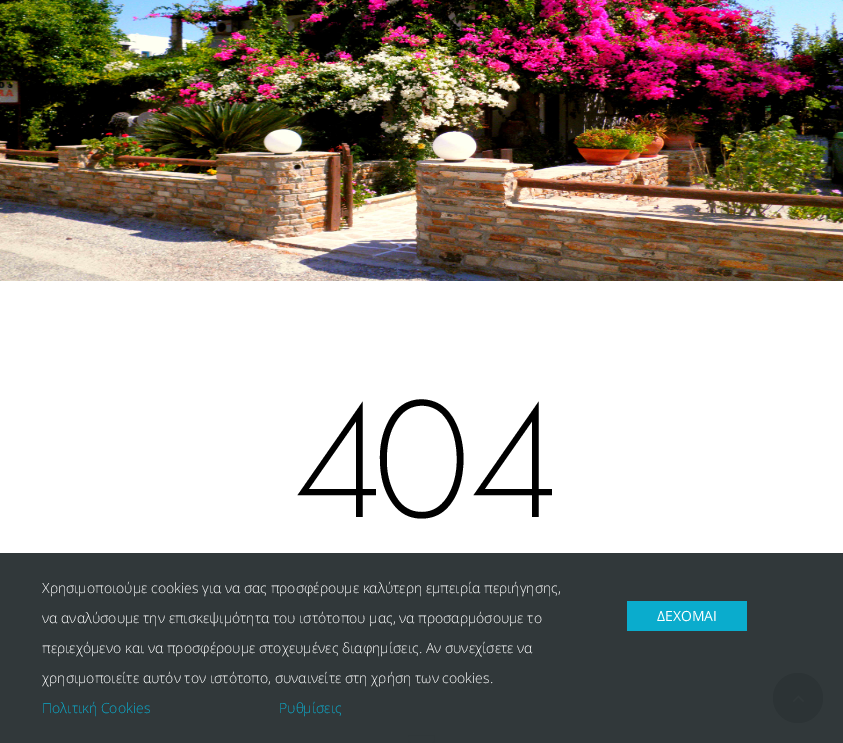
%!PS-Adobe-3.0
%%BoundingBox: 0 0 843 743
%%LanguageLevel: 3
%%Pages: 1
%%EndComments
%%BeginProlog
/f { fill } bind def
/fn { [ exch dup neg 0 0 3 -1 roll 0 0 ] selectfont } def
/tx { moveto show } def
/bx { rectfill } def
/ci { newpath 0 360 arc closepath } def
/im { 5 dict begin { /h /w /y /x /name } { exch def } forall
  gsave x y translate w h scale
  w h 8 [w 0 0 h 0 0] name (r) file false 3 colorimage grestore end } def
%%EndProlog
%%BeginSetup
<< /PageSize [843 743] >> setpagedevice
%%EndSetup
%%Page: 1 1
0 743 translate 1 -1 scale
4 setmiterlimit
1 setgray
0 0 843 743 bx
0.192 0.22 0.227 setrgbcolor
0 553 843 190 bx
(image0.raw) 0 0 843 281 im
/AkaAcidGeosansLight-Light 160 fn
0 setgray
(404) 290 517 tx
/OpenSans-Light 14 fn
1 setgray
(Χρησιμοποιούμε cookies για να σας προσφέρουμε καλύτερη εμπειρία περιήγησης,) 42 593 tx
(να αναλύσουμε την επισκεψιμότητα του ιστότοπου μας, να προσαρμόσουμε το) 42 623 tx
(περιεχόμενο και να προσφέρουμε στοχευμένες διαφημίσεις. Αν συνεχίσετε να) 42 653 tx
(χρησιμοποιείτε αυτόν τον ιστότοπο, συναινείτε στη χρήση των cookies.) 42 683 tx
0.039 0.675 0.804 setrgbcolor
(Πολιτική Cookies) 42 713 tx
(Ρυθμίσεις) 279 713 tx
627 601 120 30 bx
/OpenSans-Regular 14 fn
1 setgray
(ΔΕΧΟΜΑΙ) 657 621 tx
0.173 0.2 0.208 setrgbcolor
798 698 25 ci f
(image1.raw) 792 695 12 7 im
(image2.raw) 408 735 27 8 im
showpage
%%EOF
